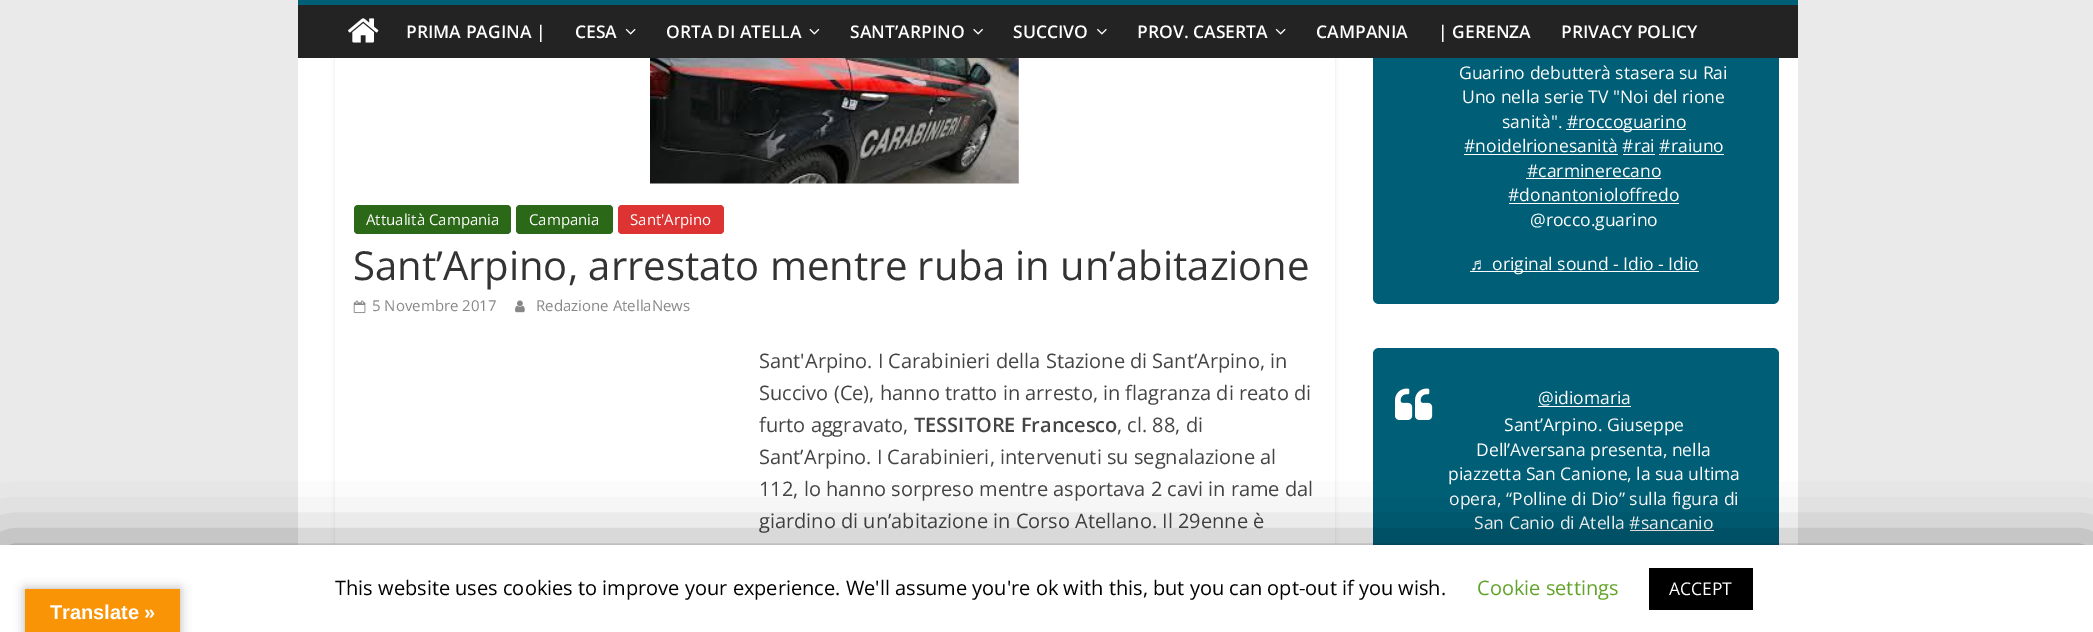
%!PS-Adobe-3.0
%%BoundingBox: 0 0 2093 632
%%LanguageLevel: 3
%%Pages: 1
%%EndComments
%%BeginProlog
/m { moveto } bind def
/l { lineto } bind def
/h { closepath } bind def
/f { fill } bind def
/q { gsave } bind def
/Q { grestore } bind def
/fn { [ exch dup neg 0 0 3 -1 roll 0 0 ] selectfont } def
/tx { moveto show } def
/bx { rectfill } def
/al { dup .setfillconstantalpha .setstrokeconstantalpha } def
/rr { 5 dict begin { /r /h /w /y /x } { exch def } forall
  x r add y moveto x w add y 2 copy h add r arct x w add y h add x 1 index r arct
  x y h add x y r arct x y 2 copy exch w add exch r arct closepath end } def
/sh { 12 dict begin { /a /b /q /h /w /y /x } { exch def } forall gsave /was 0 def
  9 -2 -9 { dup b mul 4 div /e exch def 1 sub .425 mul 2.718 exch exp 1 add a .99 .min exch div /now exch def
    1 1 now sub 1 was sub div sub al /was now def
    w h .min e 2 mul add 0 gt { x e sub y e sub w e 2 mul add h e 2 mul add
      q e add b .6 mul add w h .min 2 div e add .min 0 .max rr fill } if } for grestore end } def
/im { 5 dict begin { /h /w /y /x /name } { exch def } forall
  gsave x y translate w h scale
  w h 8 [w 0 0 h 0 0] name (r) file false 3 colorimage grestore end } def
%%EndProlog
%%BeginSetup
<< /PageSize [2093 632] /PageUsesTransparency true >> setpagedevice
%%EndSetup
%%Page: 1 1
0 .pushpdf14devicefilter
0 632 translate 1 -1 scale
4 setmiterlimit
0.918 setgray
0 0 2093 632 bx
1 setgray
298 58 1500 487 bx
q
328 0 m 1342 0 l 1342 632 l 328 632 l h 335 -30 m 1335 -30 l 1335 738 l 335 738 l h eoclip newpath
0 setgray
335 -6 1000 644 0 2 0.1 sh
Q
0 0.373 0.467 setrgbcolor
1373 -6 406 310 6 rr f
0.137 setgray
298 5 1500 53 bx
0 0.373 0.467 setrgbcolor
298 0 1500 5 bx
(image0.raw) 348 18 31 25 im
/OpenSans-SemiBold 17.5 fn
1 setgray
(PRIMA PAGINA |) 406 38 tx
(CESA) 575 38 tx
(image1.raw) 625 28 11 7 im
(ORTA DI ATELLA) 666 38 tx
(image2.raw) 809 28 11 7 im
(SANT’ARPINO) 850 38 tx
(image3.raw) 973 28 10 7 im
(SUCCIVO) 1013 38 tx
(image4.raw) 1097 28 10 7 im
(PROV. CASERTA) 1137 38 tx
(image1.raw) 1275 28 11 7 im
(CAMPANIA) 1316 38 tx
(| GERENZA) 1438 38 tx
(PRIVACY POLICY) 1561 38 tx
(image5.raw) 650 58 369 126 im
0.169 0.408 0.09 setrgbcolor
354 205 157 29 4 rr f
/OpenSans-Regular 15 fn
1 setgray
(Attualità Campania) 366 225 tx
0.169 0.408 0.09 setrgbcolor
516 205 97 29 4 rr f
1 setgray
(Campania) 529 225 tx
0.867 0.2 0.2 setrgbcolor
618 205 106 29 4 rr f
1 setgray
(Sant'Arpino) 630 225 tx
/OpenSans-Regular 40 fn
0.2 setgray
(Sant’Arpino, arrestato mentre ruba in un’abitazione) 353 280 tx
(image6.raw) 353 300 13 14 im
/OpenSans-Regular 15 fn
0.533 setgray
(5 Novembre 2017) 372 311 tx
(image7.raw) 515 300 10 13 im
(Redazione AtellaNews) 536 311 tx
/OpenSans-Regular 20 fn
0.267 setgray
(Sant'Arpino. I Carabinieri della Stazione di Sant’Arpino, in) 759 368 tx
(Succivo \(Ce\), hanno tratto in arresto, in flagranza di reato di) 759 400 tx
(furto aggravato,) 759 432 tx
/OpenSans-SemiBold 20 fn
(TESSITORE Francesco) 914 432 tx
/OpenSans-Regular 20 fn
(, cl. 88, di) 1117 432 tx
(Sant’Arpino. I Carabinieri, intervenuti su segnalazione al) 759 464 tx
(112, lo hanno sorpreso mentre asportava 2 cavi in rame dal) 759 496 tx
(giardino di un’abitazione in Corso Atellano. Il 29enne è) 759 528 tx
/OpenSans-Regular 17.5 fn
1 setgray
(Guarino debutterà stasera su Rai) 1459 79 tx
(Uno nella serie TV "Noi del rione) 1462 103 tx
(sanità".) 1502 128 tx
1566 129 120 1 bx
(#roccoguarino) 1567 128 tx
(#noidelrionesanità #rai #raiuno) 1464 152 tx
1464 154 154 1 bx
1623 154 32 1 bx
1659 154 65 1 bx
(#carminerecano) 1527 177 tx
1526 178 135 1 bx
(#donantonioloffredo) 1508 201 tx
1509 203 170 1 bx
(@rocco.guarino) 1530 226 tx
/LiberationSerif-Regular 17.5 fn
(♬) 1470 270 tx
1470 271 229 1 bx
/OpenSans-Regular 17.5 fn
(original sound - Idio - Idio) 1492 270 tx
0 0.373 0.467 setrgbcolor
1373 348 406 283 6 rr f
1 setgray
(@idiomaria) 1538 404 tx
1538 406 93 1 bx
(image8.raw) 1395 388 38 32 im
(Sant’Arpino. Giuseppe) 1504 431 tx
(Dell’Aversana presenta, nella) 1476 456 tx
(piazzetta San Canione, la sua ultima) 1448 480 tx
(opera, “Polline di Dio” sulla figura di) 1449 505 tx
(San Canio di Atella #sancanio) 1474 529 tx
1630 530 84 1 bx
0 setgray
0 551 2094 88 0 31 0.5 sh
1 setgray
0 545 2093 87 bx
/OpenSans-Regular 20 fn
0 setgray
(This website uses cookies to improve your experience. We'll assume you're ok with this, but you can opt-out if you wish.) 335 595 tx
0.384 0.639 0.161 setrgbcolor
(Cookie settings) 1477 595 tx
0 setgray
1649 568 104 42 bx
/OpenSans-Regular 17.5 fn
1 setgray
(ACCEPT) 1669 595 tx
0 setgray
25 589 155 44 0 5.5 0.3 sh
0.973 0.58 0.024 setrgbcolor
25 589 155 43 bx
/LiberationSans-Bold 20 fn
1 setgray
(Translate ») 50 619 tx
.poppdf14devicefilter showpage
%%EOF
